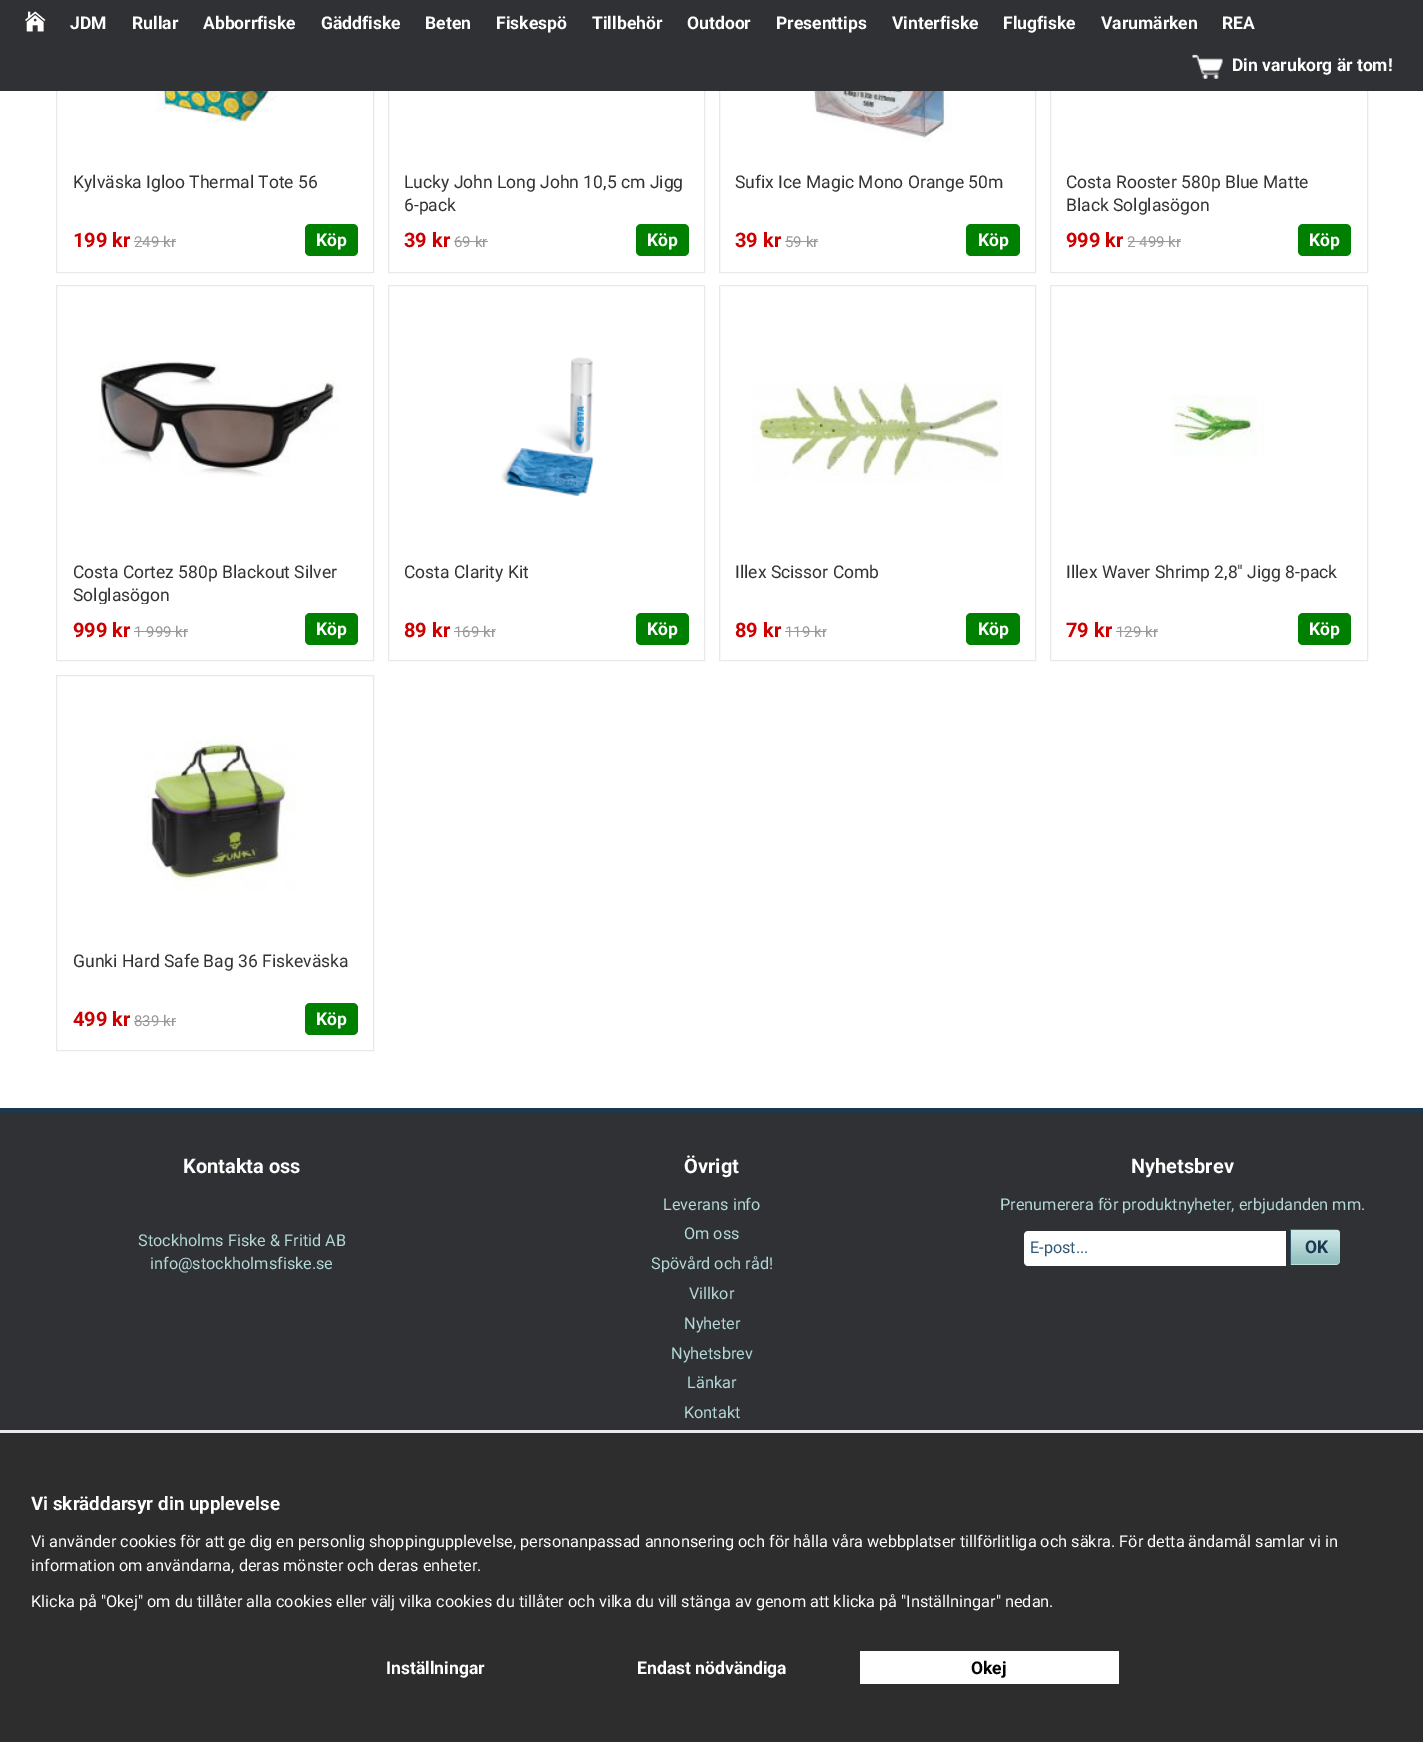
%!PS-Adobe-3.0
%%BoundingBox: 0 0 1423 1742
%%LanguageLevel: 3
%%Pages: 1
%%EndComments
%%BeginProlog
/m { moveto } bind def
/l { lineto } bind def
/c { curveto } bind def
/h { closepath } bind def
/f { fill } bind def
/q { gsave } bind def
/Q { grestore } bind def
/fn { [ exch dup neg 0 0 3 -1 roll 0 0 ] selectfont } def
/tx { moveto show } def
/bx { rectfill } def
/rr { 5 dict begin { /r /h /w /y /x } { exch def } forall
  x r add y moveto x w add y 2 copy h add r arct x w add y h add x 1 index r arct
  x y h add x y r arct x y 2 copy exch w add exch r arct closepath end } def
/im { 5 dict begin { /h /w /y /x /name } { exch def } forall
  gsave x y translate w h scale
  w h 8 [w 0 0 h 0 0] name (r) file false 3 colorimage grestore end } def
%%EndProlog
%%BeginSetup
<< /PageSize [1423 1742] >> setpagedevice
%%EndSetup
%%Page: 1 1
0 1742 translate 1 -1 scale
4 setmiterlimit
1 setgray
0 0 1423 1742 bx
0.914 setgray
56.5 -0.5 317 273 rectstroke
388.5 -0.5 316 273 rectstroke
719.5 -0.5 316 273 rectstroke
1050.5 -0.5 317 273 rectstroke
0.188 0.192 0.204 setrgbcolor
0 0 1423 91 bx
(image0.raw) 25 11 21 21 im
/Roboto-Bold 17.5 fn
1 setgray
(JDM) 70 29 tx
(Rullar) 132 29 tx
(Abborrfiske) 203 29 tx
(Gäddfiske) 321 29 tx
(Beten) 425 29 tx
(Fiskespö) 496 29 tx
(Tillbehör) 592 29 tx
(Outdoor) 687 29 tx
(Presenttips) 776 29 tx
(Vinterfiske) 892 29 tx
(Flugfiske) 1003 29 tx
(Varumärken) 1101 29 tx
(REA) 1222 29 tx
(image1.raw) 1192 54 31 25 im
(Din varukorg är tom!) 1232 71 tx
(image2.raw) 146 91 140 31 im
/Roboto-Regular 17.5 fn
0.2 setgray
(Kylväska Igloo Thermal Tote 56) 73 188 tx
/Roboto-Bold 20 fn
0.8 0 0 setrgbcolor
(199 kr) 73 247 tx
/Roboto-Regular 15 fn
0.6 setgray
(249 kr) 134 247 tx
134 241 42 1 bx
0 0.502 0 setrgbcolor
305 224 53 32 5 rr f
/Roboto-Bold 17.5 fn
1 setgray
(Köp) 316 246 tx
/Roboto-Regular 17.5 fn
0.2 setgray
(Lucky John Long John 10,5 cm Jigg) 404 188 tx
(6-pack) 404 211 tx
/Roboto-Bold 20 fn
0.8 0 0 setrgbcolor
(39 kr) 404 247 tx
/Roboto-Regular 15 fn
0.6 setgray
(69 kr) 454 247 tx
454 241 34 1 bx
0 0.502 0 setrgbcolor
636 224 53 32 5 rr f
/Roboto-Bold 17.5 fn
1 setgray
(Köp) 647 246 tx
(image3.raw) 804 91 149 51 im
/Roboto-Regular 17.5 fn
0.2 setgray
(Sufix Ice Magic Mono Orange 50m) 735 188 tx
/Roboto-Bold 20 fn
0.8 0 0 setrgbcolor
(39 kr) 735 247 tx
/Roboto-Regular 15 fn
0.6 setgray
(59 kr) 785 247 tx
785 241 33 1 bx
0 0.502 0 setrgbcolor
966 224 54 32 5 rr f
/Roboto-Bold 17.5 fn
1 setgray
(Köp) 978 246 tx
/Roboto-Regular 17.5 fn
0.2 setgray
(Costa Rooster 580p Blue Matte) 1066 188 tx
(Black Solglasögon) 1066 211 tx
/Roboto-Bold 20 fn
0.8 0 0 setrgbcolor
(999 kr) 1066 247 tx
/Roboto-Regular 15 fn
0.6 setgray
(2 499 kr) 1127 247 tx
1128 241 53 1 bx
0 0.502 0 setrgbcolor
1298 224 53 32 5 rr f
/Roboto-Bold 17.5 fn
1 setgray
(Köp) 1309 246 tx
0.914 setgray
56.5 285.5 317 375 rectstroke
(image4.raw) 99 361 241 116 im
/Roboto-Regular 17.5 fn
0.2 setgray
(Costa Cortez 580p Blackout Silver) 73 578 tx
q
73 560 285 44 rectclip
(Solglasögon) 73 601 tx
Q
/Roboto-Bold 20 fn
0.8 0 0 setrgbcolor
(999 kr) 73 637 tx
/Roboto-Regular 15 fn
0.6 setgray
(1 999 kr) 134 637 tx
134 631 54 1 bx
0 0.502 0 setrgbcolor
305 613 53 32 5 rr f
/Roboto-Bold 17.5 fn
1 setgray
(Köp) 316 635 tx
0.914 setgray
388.5 285.5 316 375 rectstroke
(image5.raw) 501 357 93 139 im
/Roboto-Regular 17.5 fn
0.2 setgray
(Costa Clarity Kit) 404 578 tx
/Roboto-Bold 20 fn
0.8 0 0 setrgbcolor
(89 kr) 404 637 tx
/Roboto-Regular 15 fn
0.6 setgray
(169 kr) 454 637 tx
454 631 41 1 bx
0 0.502 0 setrgbcolor
636 613 53 32 5 rr f
/Roboto-Bold 17.5 fn
1 setgray
(Köp) 647 635 tx
0.914 setgray
719.5 285.5 316 375 rectstroke
(image6.raw) 752 382 251 101 im
/Roboto-Regular 17.5 fn
0.2 setgray
(Illex Scissor Comb) 735 578 tx
/Roboto-Bold 20 fn
0.8 0 0 setrgbcolor
(89 kr) 735 637 tx
/Roboto-Regular 15 fn
0.6 setgray
(119 kr) 785 637 tx
785 631 41 1 bx
0 0.502 0 setrgbcolor
966 613 54 32 5 rr f
/Roboto-Bold 17.5 fn
1 setgray
(Köp) 978 635 tx
0.914 setgray
1050.5 285.5 317 375 rectstroke
(image7.raw) 1171 395 93 61 im
/Roboto-Regular 17.5 fn
0.2 setgray
(Illex Waver Shrimp 2,8" Jigg 8-pack) 1066 578 tx
/Roboto-Bold 20 fn
0.8 0 0 setrgbcolor
(79 kr) 1066 637 tx
/Roboto-Regular 15 fn
0.6 setgray
(129 kr) 1116 637 tx
1116 631 42 1 bx
0 0.502 0 setrgbcolor
1298 613 53 32 5 rr f
/Roboto-Bold 17.5 fn
1 setgray
(Köp) 1309 635 tx
0.914 setgray
56.5 675.5 317 375 rectstroke
(image8.raw) 145 736 151 155 im
/Roboto-Regular 17.5 fn
0.2 setgray
(Gunki Hard Safe Bag 36 Fiskeväska) 73 967 tx
/Roboto-Bold 20 fn
0.8 0 0 setrgbcolor
(499 kr) 73 1026 tx
/Roboto-Regular 15 fn
0.6 setgray
(839 kr) 134 1026 tx
134 1021 42 1 bx
0 0.502 0 setrgbcolor
305 1003 53 32 5 rr f
/Roboto-Bold 17.5 fn
1 setgray
(Köp) 316 1025 tx
0.188 0.192 0.204 setrgbcolor
0 1114 1423 316 bx
0.114 0.22 0.302 setrgbcolor
0 1108 1423 6 bx
/Roboto-Bold 20 fn
1 setgray
(Kontakta oss) 183 1173 tx
/Roboto-Regular 16.25 fn
0.706 0.847 0.847 setrgbcolor
(Stockholms Fiske & Fritid AB) 138 1246 tx
(info@stockholmsfiske.se) 150 1269 tx
/Roboto-Bold 20 fn
1 setgray
(Övrigt) 684 1173 tx
/Roboto-Regular 16.25 fn
0.706 0.847 0.847 setrgbcolor
(Leverans info) 663 1210 tx
(Om oss) 684 1239 tx
(Spövård och råd!) 651 1269 tx
(Villkor) 689 1299 tx
(Nyheter) 684 1329 tx
(Nyhetsbrev) 671 1359 tx
(Länkar) 687 1388 tx
(Kontakt) 684 1418 tx
/Roboto-Bold 20 fn
1 setgray
(Nyhetsbrev) 1131 1173 tx
/Roboto-Regular 16.25 fn
0.706 0.847 0.847 setrgbcolor
(Prenumerera för produktnyheter, erbjudanden mm.) 1000 1210 tx
1 setgray
1028 1231 m 1286 1231 l 1286 1266 l 1028 1266 l 1026 1266 1024 1264 1024 1262 c 1024 1235 l 1024 1233 1026 1231 1028 1231 c h f
0.196 0.341 0.451 setrgbcolor
(E-post...) 1030 1253 tx
0.812 0.91 0.91 setrgbcolor
1290 1230 m 1336 1230 l 1338 1230 1340 1232 1340 1234 c 1340 1261 l 1340 1263 1338 1265 1336 1265 c 1290 1265 l h f
(image9.raw) 1290 1229 50 36 im
0.196 0.341 0.451 setrgbcolor
1290 1230 1 35 bx
/Roboto-Bold 17.5 fn
0.114 0.22 0.302 setrgbcolor
(OK) 1305 1253 tx
0.176 setgray
0 1433 1423 309 bx
0.914 setgray
0 1430 1423 3 bx
/Roboto-Bold 18.75 fn
1 setgray
(Vi skräddarsyr din upplevelse) 31 1510 tx
/Roboto-Regular 16.25 fn
(Vi använder cookies för att ge dig en personlig shoppingupplevelse, personanpassad annonsering och för hålla våra webbplatser tillförlitliga och säkra. För detta ändamål samlar vi in) 31 1547 tx
(information om användarna, deras mönster och deras enheter.) 31 1571 tx
(Klicka på "Okej" om du tillåter alla cookies eller välj vilka cookies du tillåter och vilka du vill stänga av genom att klicka på "Inställningar" nedan.) 31 1607 tx
/Roboto-Bold 17.5 fn
(Inställningar) 386 1674 tx
(Endast nödvändiga) 637 1674 tx
860 1651 259 33 bx
0 setgray
(Okej) 971 1674 tx
showpage
%%EOF
